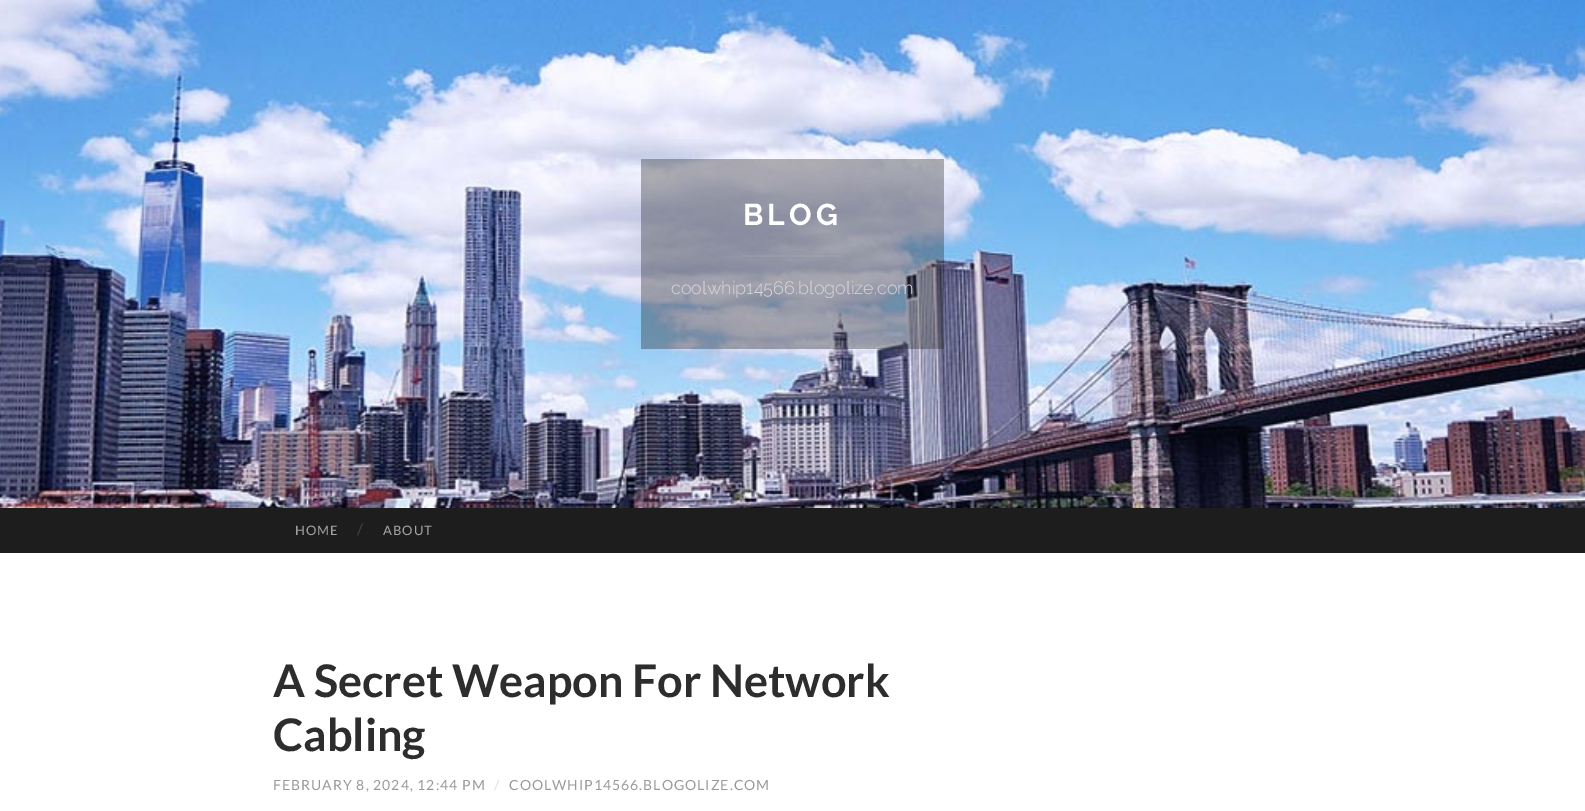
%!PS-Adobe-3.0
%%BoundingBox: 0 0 1585 811
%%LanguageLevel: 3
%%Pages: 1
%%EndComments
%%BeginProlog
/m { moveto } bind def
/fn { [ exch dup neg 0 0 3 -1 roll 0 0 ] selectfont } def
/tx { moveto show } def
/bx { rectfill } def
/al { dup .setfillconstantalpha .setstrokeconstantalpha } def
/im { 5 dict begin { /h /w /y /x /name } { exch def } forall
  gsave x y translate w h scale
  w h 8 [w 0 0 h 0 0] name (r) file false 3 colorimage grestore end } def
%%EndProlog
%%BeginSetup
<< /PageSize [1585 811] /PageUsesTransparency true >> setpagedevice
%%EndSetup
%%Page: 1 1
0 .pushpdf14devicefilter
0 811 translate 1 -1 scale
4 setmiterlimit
1 setgray
0 0 1585 811 bx
(image0.raw) 0 0 1585 508 im
0.34 al
0.114 setgray
641 159 303 190 bx
/Raleway-Bold 30 fn
1 al
1 setgray
743 225 m 4 0 (BLOG) ashow
0.06 al
742 255 100 2 bx
/Raleway-Light 18 fn
1 al
0.843 0.847 0.867 setrgbcolor
(coolwhip14566.blogolize.com) 671 294 tx
0.114 setgray
0 508 1585 45 bx
/Lato-Regular 13 fn
0.647 setgray
295 535 m 1 0 (HOME) ashow
/Lato-Regular 16 fn
0.267 setgray
(/) 357 535 tx
/Lato-Regular 13 fn
0.647 setgray
383 535 m 1 0 (ABOUT) ashow
/Lato-Bold 45 fn
0.176 setgray
(A Secret Weapon For Network) 273 697 tx
(Cabling) 273 751 tx
/Lato-Regular 14 fn
0.6 setgray
273 790 m 1 0 (FEBRUARY 8, 2024, 12:44 PM) ashow
0.867 setgray
494 790 m 1 0 (/) ashow
0.6 setgray
509 790 m 1 0 (COOLWHIP14566.BLOGOLIZE.COM) ashow
.poppdf14devicefilter showpage
%%EOF
